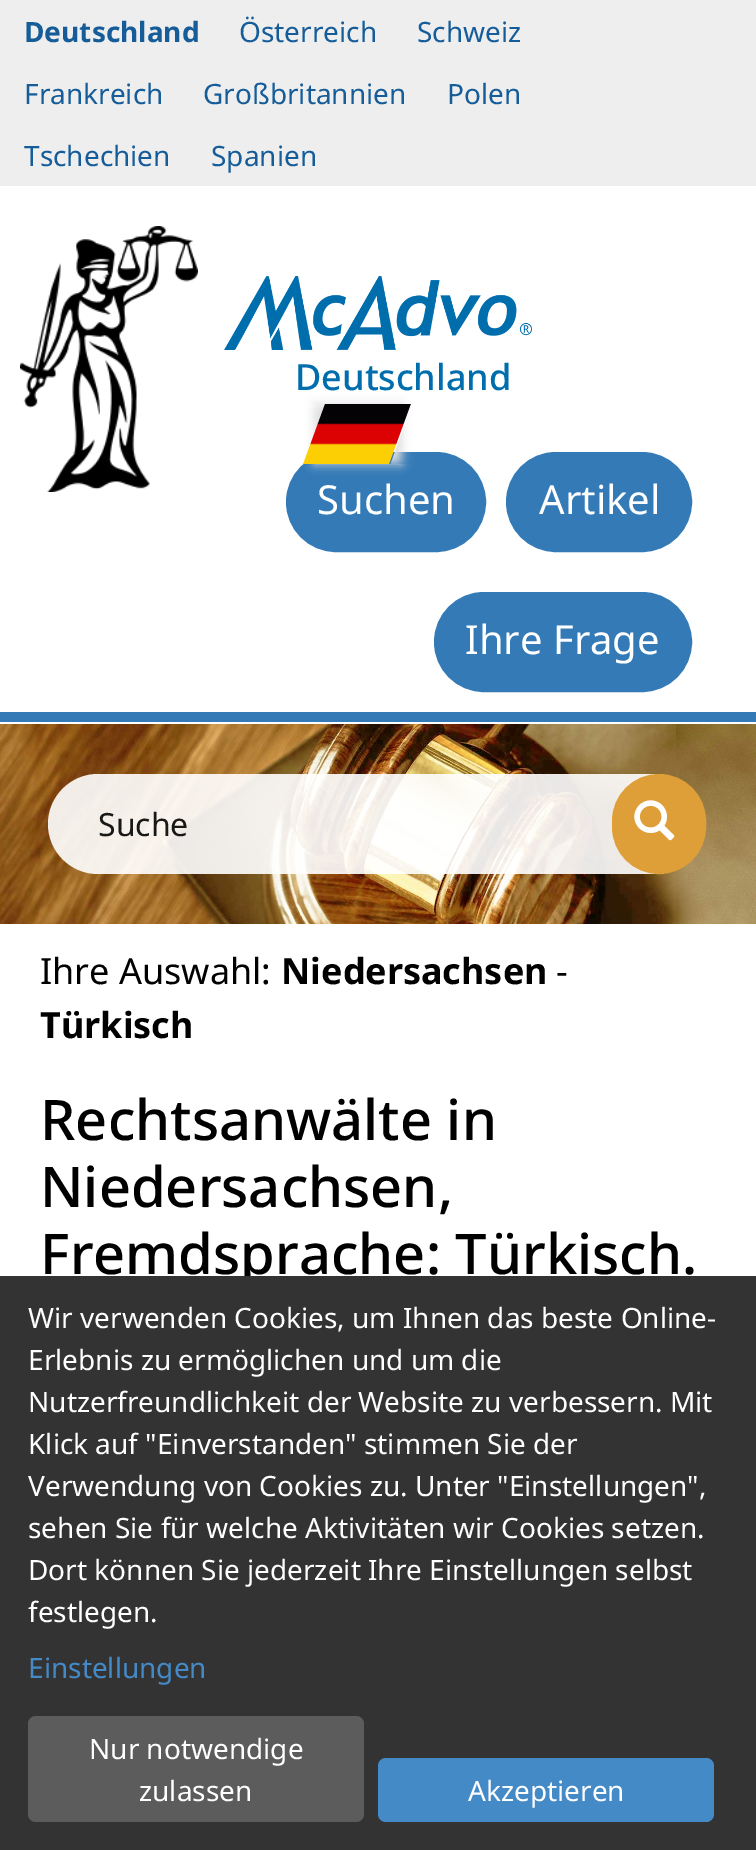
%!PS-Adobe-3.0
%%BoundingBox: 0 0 756 1850
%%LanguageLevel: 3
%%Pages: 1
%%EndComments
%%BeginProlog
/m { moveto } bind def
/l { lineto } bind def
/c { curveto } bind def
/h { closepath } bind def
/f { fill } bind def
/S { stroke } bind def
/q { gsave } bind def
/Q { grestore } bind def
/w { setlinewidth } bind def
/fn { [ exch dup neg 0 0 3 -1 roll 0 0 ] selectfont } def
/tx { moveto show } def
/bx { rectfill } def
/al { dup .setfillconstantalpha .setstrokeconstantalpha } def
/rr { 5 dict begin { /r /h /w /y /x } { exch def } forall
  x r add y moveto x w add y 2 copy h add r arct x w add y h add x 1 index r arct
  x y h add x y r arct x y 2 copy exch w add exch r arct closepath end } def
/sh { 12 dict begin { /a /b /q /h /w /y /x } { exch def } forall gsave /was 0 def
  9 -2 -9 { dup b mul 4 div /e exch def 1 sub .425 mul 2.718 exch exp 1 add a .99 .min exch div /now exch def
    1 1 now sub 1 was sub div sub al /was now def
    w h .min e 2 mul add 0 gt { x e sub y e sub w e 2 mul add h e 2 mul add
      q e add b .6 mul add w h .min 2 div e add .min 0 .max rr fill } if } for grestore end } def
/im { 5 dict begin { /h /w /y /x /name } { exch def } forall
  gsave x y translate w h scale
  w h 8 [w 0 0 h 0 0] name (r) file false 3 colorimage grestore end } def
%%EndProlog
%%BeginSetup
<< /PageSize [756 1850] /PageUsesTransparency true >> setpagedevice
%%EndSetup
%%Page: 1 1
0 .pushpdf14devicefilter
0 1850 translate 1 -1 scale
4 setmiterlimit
1 setgray
0 0 756 1850 bx
0.933 setgray
0 0 756 186 bx
/NotoSans-Bold 28 fn
0.082 0.361 0.6 setrgbcolor
(Deutschland) 24 42 tx
/NotoSans-Regular 28 fn
(Österreich) 239 42 tx
(Schweiz) 417 42 tx
(Frankreich) 24 104 tx
(Großbritannien) 203 104 tx
(Polen) 447 104 tx
(Tschechien) 24 166 tx
(Spanien) 211 166 tx
(image0.raw) 20 226 178 266 im
(image1.raw) 224 276 308 74 im
/NotoSans-Medium 36 fn
0 0.427 0.678 setrgbcolor
(Deutschland) 295 390 tx
0.2 0.478 0.718 setrgbcolor
287 453 198 98 49 rr q f Q
2 w
S
0.867 setgray
314 404 88 60 0 5 1 sh
(image2.raw) 303 404 108 60 im
/NotoSans-Regular 40 fn
1 setgray
(Suchen) 317 514 tx
0.2 0.478 0.718 setrgbcolor
507 453 184 98 49 rr q f Q
S
1 setgray
(Artikel) 539 514 tx
0.2 0.478 0.718 setrgbcolor
435 593 256 98 49 rr q f Q
S
1 setgray
(Ihre Frage) 465 654 tx
0.2 0.478 0.718 setrgbcolor
0 712 756 10 bx
(image3.raw) 0 724 756 200 im
0.9 al
1 setgray
98 774 m 664 774 l 664 874 l 98 874 l 70.5 874 48 851.5 48 824 c 48 796.5 70.5 774 98 774 c h f
/NotoSans-Regular 32 fn
1 al
0.094 0.094 0.09 setrgbcolor
(Suche) 98 836 tx
0.871 0.62 0.22 setrgbcolor
613 775 92 98 46 rr q f Q
S
(image4.raw) 634 800 41 41 im
/NotoSans-Regular 36 fn
0 setgray
(Ihre Auswahl:) 40 984 tx
/NotoSans-Bold 36 fn
(Niedersachsen) 281 984 tx
/NotoSans-Regular 36 fn
(-) 556 984 tx
/NotoSans-Bold 36 fn
(Türkisch) 40 1038 tx
/NotoSans-Medium 56 fn
(Rechtsanwälte in) 40 1140 tx
(Niedersachsen,) 40 1207 tx
(Fremdsprache: Türkisch.) 40 1274 tx
0.2 setgray
0 1276 756 574 bx
/NotoSans-Regular 28 fn
1 setgray
(Wir verwenden Cookies, um Ihnen das beste Online-) 28 1328 tx
(Erlebnis zu ermöglichen und um die) 28 1370 tx
(Nutzerfreundlichkeit der Website zu verbessern. Mit) 28 1412 tx
(Klick auf "Einverstanden" stimmen Sie der) 28 1454 tx
(Verwendung von Cookies zu. Unter "Einstellungen",) 28 1496 tx
(sehen Sie für welche Aktivitäten wir Cookies setzen.) 28 1538 tx
(Dort können Sie jederzeit Ihre Einstellungen selbst) 28 1580 tx
(festlegen.) 28 1622 tx
0.267 0.541 0.78 setrgbcolor
(Einstellungen) 28 1678 tx
0.361 setgray
28 1716 336 106 8 rr f
1 setgray
(Nur notwendige) 89 1759 tx
(zulassen) 139 1801 tx
0.267 0.541 0.78 setrgbcolor
378 1758 336 64 8 rr f
1 setgray
(Akzeptieren) 468 1801 tx
.poppdf14devicefilter showpage
%%EOF
